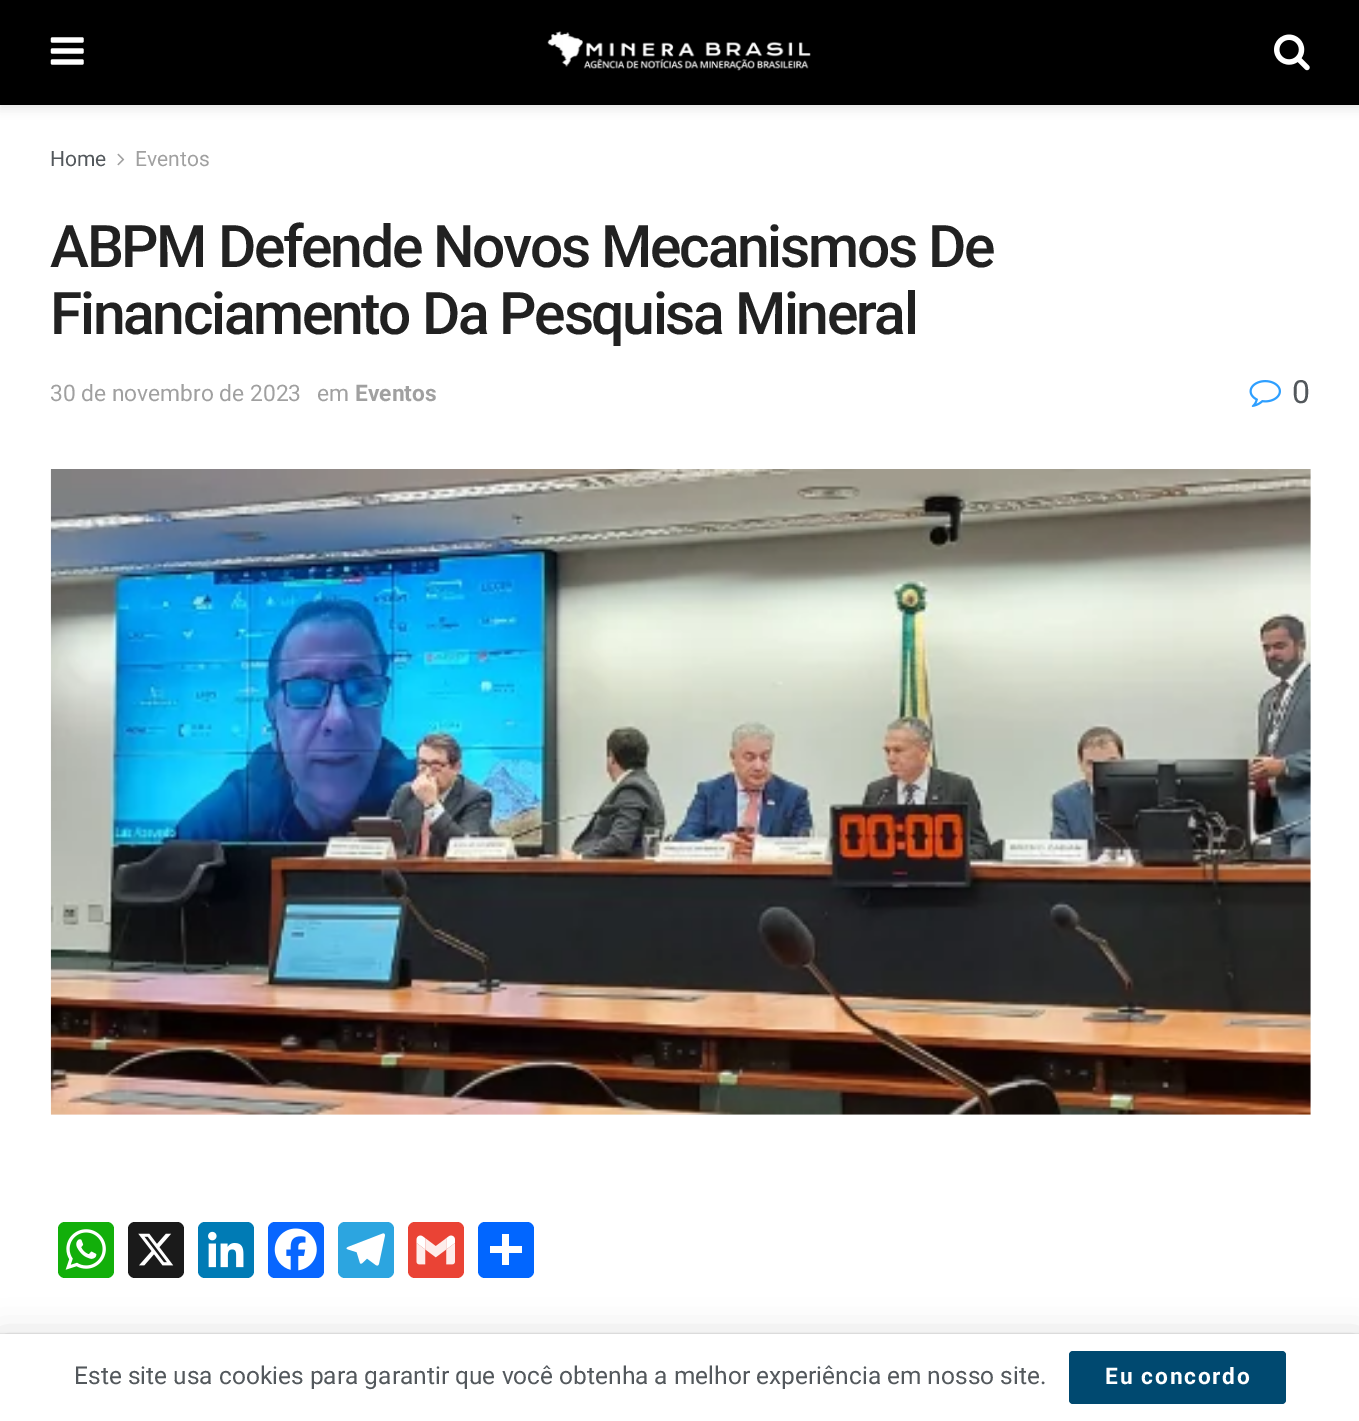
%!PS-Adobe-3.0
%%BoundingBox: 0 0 1359 1421
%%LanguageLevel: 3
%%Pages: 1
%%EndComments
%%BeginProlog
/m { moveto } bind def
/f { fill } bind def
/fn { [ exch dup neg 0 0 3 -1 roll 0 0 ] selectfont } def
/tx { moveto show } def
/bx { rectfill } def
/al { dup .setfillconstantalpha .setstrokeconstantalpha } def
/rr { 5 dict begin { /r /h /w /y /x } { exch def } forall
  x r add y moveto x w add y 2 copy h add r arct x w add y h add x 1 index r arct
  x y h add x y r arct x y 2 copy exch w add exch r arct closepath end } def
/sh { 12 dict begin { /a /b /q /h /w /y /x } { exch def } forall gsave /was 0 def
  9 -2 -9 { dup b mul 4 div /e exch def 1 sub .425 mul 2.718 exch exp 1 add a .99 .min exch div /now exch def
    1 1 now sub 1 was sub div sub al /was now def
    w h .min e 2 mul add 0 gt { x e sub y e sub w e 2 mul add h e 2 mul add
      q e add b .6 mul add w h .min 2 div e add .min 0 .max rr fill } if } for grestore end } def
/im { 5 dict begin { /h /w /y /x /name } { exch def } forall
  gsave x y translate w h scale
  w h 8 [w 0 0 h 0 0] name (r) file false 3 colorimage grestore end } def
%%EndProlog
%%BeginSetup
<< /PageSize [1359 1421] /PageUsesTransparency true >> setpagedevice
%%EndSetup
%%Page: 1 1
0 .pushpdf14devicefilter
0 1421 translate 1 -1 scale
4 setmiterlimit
1 setgray
0 0 1359 1421 bx
0 setgray
0 4 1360 105 0 5 0.1 sh
0 0 1359 105 bx
(image0.raw) 50 37 34 28 im
(image1.raw) 547 31 264 40 im
(image2.raw) 1274 34 36 37 im
/Roboto-Regular 21 fn
0.325 0.345 0.361 setrgbcolor
(Home) 50 166 tx
(image3.raw) 117 153 8 13 im
0.627 setgray
(Eventos) 135 166 tx
/Roboto-Medium 58.75 fn
0.129 setgray
50 267 m -2.35 0 (ABPM Defende Novos Mecanismos De) ashow
50 334 m -2.35 0 (Financiamento Da Pesquisa Mineral) ashow
/Roboto-Regular 22.75 fn
0.627 setgray
(30 de novembro de 2023) 50 401 tx
(em) 317 401 tx
/Roboto-Bold 22.75 fn
(Eventos) 355 401 tx
(image4.raw) 1249 380 32 27 im
/Roboto-Regular 32 fn
0.325 0.345 0.361 setrgbcolor
(0) 1292 403 tx
0.969 setgray
51 469 1260 646 bx
(image5.raw) 50 469 1261 646 im
0.071 0.686 0.039 setrgbcolor
58 1222 56 56 7 rr f
(image6.raw) 65 1229 41 41 im
0.102 setgray
128 1222 56 56 7 rr f
(image7.raw) 138 1233 36 33 im
0 0.482 0.71 setrgbcolor
198 1222 56 56 7 rr f
(image8.raw) 208 1231 36 37 im
0.031 0.4 1 setrgbcolor
268 1222 56 56 7 rr f
(image9.raw) 274 1228 43 43 im
0.173 0.647 0.878 setrgbcolor
338 1222 56 56 7 rr f
(image10.raw) 346 1233 39 33 im
0.918 0.263 0.208 setrgbcolor
408 1222 56 56 7 rr f
(image11.raw) 416 1235 39 30 im
0.004 0.4 1 setrgbcolor
478 1222 56 56 7 rr f
1 setgray
502 1234 7 31 bx
490 1246 32 7 bx
0 setgray
0 1337 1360 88 0 17.5 0.15 sh
0 1334 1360 87 0 1 0.2 sh
1 setgray
0 1334 1359 87 bx
/Roboto-Regular 24.5 fn
0.325 0.345 0.361 setrgbcolor
(Este site usa cookies para garantir que você obtenha a melhor experiência em nosso site.) 74 1384 tx
0 0.286 0.439 setrgbcolor
1069 1351 217 53 4 rr f
/Roboto-Bold 22.75 fn
1 setgray
1105 1384 m 1.75 0 (Eu concordo) ashow
.poppdf14devicefilter showpage
%%EOF
